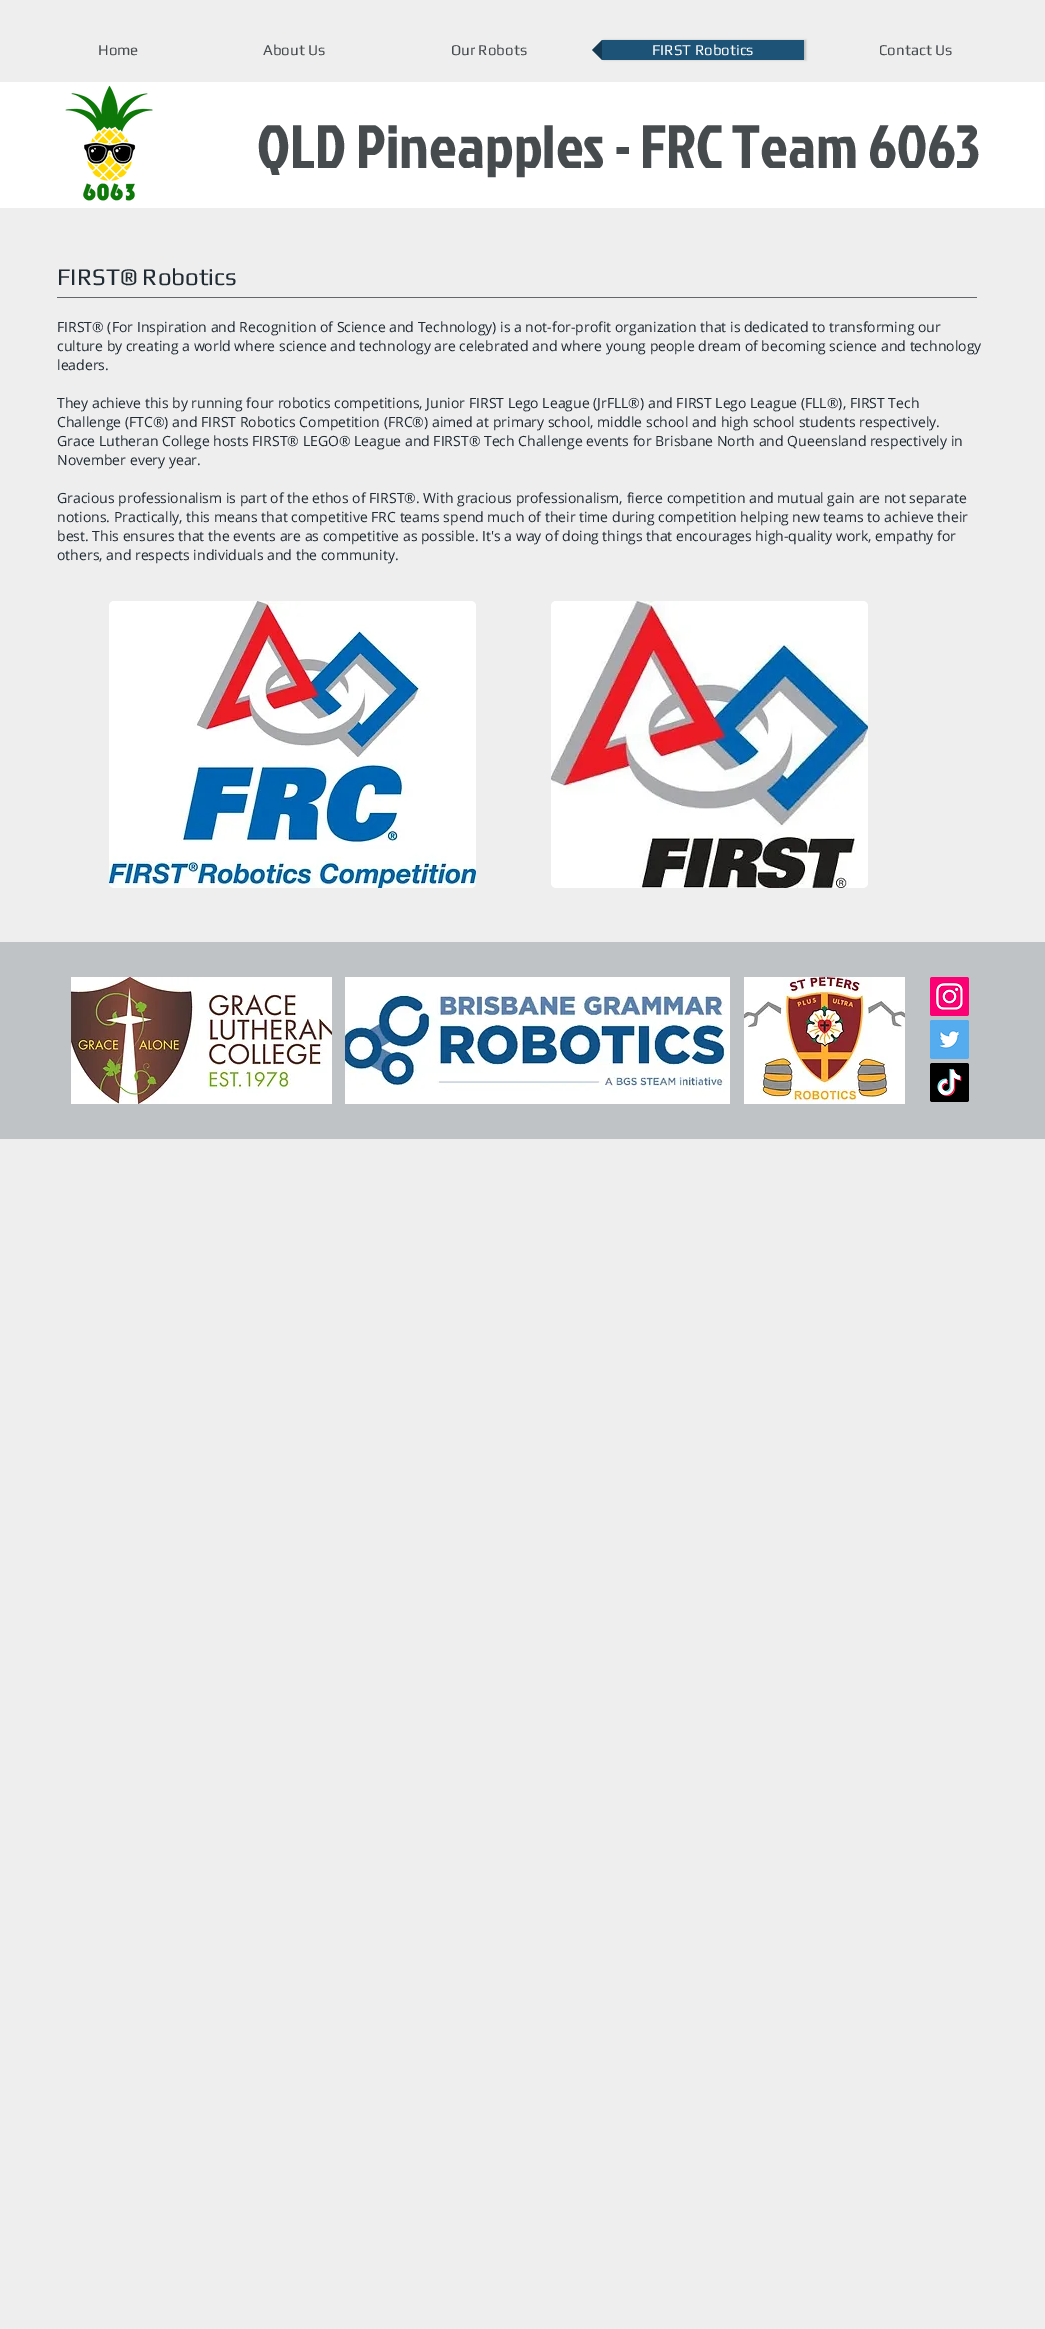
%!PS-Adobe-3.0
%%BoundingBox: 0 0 1045 2329
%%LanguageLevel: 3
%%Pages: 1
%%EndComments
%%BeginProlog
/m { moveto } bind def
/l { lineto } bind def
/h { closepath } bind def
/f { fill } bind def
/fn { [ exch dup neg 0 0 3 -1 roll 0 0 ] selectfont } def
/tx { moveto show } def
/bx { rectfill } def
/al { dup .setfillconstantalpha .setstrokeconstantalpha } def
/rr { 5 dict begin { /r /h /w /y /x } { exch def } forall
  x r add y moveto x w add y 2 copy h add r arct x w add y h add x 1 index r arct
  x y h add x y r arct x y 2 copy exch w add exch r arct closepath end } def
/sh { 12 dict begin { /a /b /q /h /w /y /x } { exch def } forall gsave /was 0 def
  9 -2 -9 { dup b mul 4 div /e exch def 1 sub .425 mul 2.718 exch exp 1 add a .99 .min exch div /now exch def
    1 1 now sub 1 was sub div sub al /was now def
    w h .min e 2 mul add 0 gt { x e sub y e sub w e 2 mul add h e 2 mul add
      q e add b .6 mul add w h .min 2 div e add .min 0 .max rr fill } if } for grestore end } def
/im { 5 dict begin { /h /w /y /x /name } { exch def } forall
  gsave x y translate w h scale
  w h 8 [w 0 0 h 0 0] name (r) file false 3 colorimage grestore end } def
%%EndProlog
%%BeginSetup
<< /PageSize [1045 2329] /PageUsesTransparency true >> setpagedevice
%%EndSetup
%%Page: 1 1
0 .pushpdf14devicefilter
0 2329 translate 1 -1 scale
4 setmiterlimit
0.933 setgray
0 0 1045 2329 bx
/Play-Regular 15 fn
0.275 0.294 0.306 setrgbcolor
(Home) 98 55 tx
(About Us) 263 55 tx
(Our Robots) 451 55 tx
0 setgray
604 40 202 20 0 1 0.2 sh
0.078 0.227 0.325 setrgbcolor
602 50 m 592 50 l 602 40 l h 592 50 m 602 50 l 602 60 l h f
0.114 0.325 0.467 setrgbcolor
602 40 202 20 bx
1 setgray
(FIRST Robotics) 652 55 tx
0.275 0.294 0.306 setrgbcolor
(Contact Us) 879 55 tx
1 setgray
0 82 1045 126 bx
(image0.raw) 65 85 88 116 im
/JockeyOne-Regular 61 fn
0.275 0.294 0.306 setrgbcolor
(QLD Pineapples - FRC Team 6063) 257 168 tx
/Play-Regular 24 fn
0.125 0.169 0.2 setrgbcolor
(FIRST® Robotics) 57 285 tx
0.388 0.404 0.412 setrgbcolor
57 297 920 1 bx
/OpenSans-Regular 14 fn
0.125 0.169 0.2 setrgbcolor
(FIRST® \(For Inspiration and Recognition of Science and Technology\) is a not-for-profit organization that is dedicated to transforming our) 57 332 tx
(culture by creating a world where science and technology are celebrated and where young people dream of becoming science and technology) 57 351 tx
(leaders.) 57 370 tx
(They achieve this by running four robotics competitions, Junior FIRST Lego League \(JrFLL®\) and FIRST Lego League \(FLL®\), FIRST Tech) 57 408 tx
(Challenge \(FTC®\) and FIRST Robotics Competition \(FRC®\) aimed at primary school, middle school and high school students respectively.) 57 427 tx
(Grace Lutheran College hosts FIRST® LEGO® League and FIRST® Tech Challenge events for Brisbane North and Queensland respectively in) 57 446 tx
(November every year.) 57 465 tx
(Gracious professionalism is part of the ethos of FIRST®. With gracious professionalism, fierce competition and mutual gain are not separate) 57 503 tx
(notions. Practically, this means that competitive FRC teams spend much of their time during competition helping new teams to achieve their) 57 522 tx
(best. This ensures that the events are as competitive as possible. It's a way of doing things that encourages high-quality work, empathy for) 57 541 tx
(others, and respects individuals and the community.) 57 560 tx
1 setgray
109 601 367 287 5 rr f
(image1.raw) 109 601 367 287 im
551 601 317 287 5 rr f
(image2.raw) 551 601 317 287 im
0.753 0.765 0.773 setrgbcolor
0 942 1045 197 bx
(image3.raw) 71 977 261 127 im
(image4.raw) 345 977 385 127 im
(image5.raw) 744 977 161 127 im
(image6.raw) 930 977 39 39 im
(image7.raw) 930 1020 39 39 im
(image8.raw) 930 1063 39 39 im
.poppdf14devicefilter showpage
%%EOF
